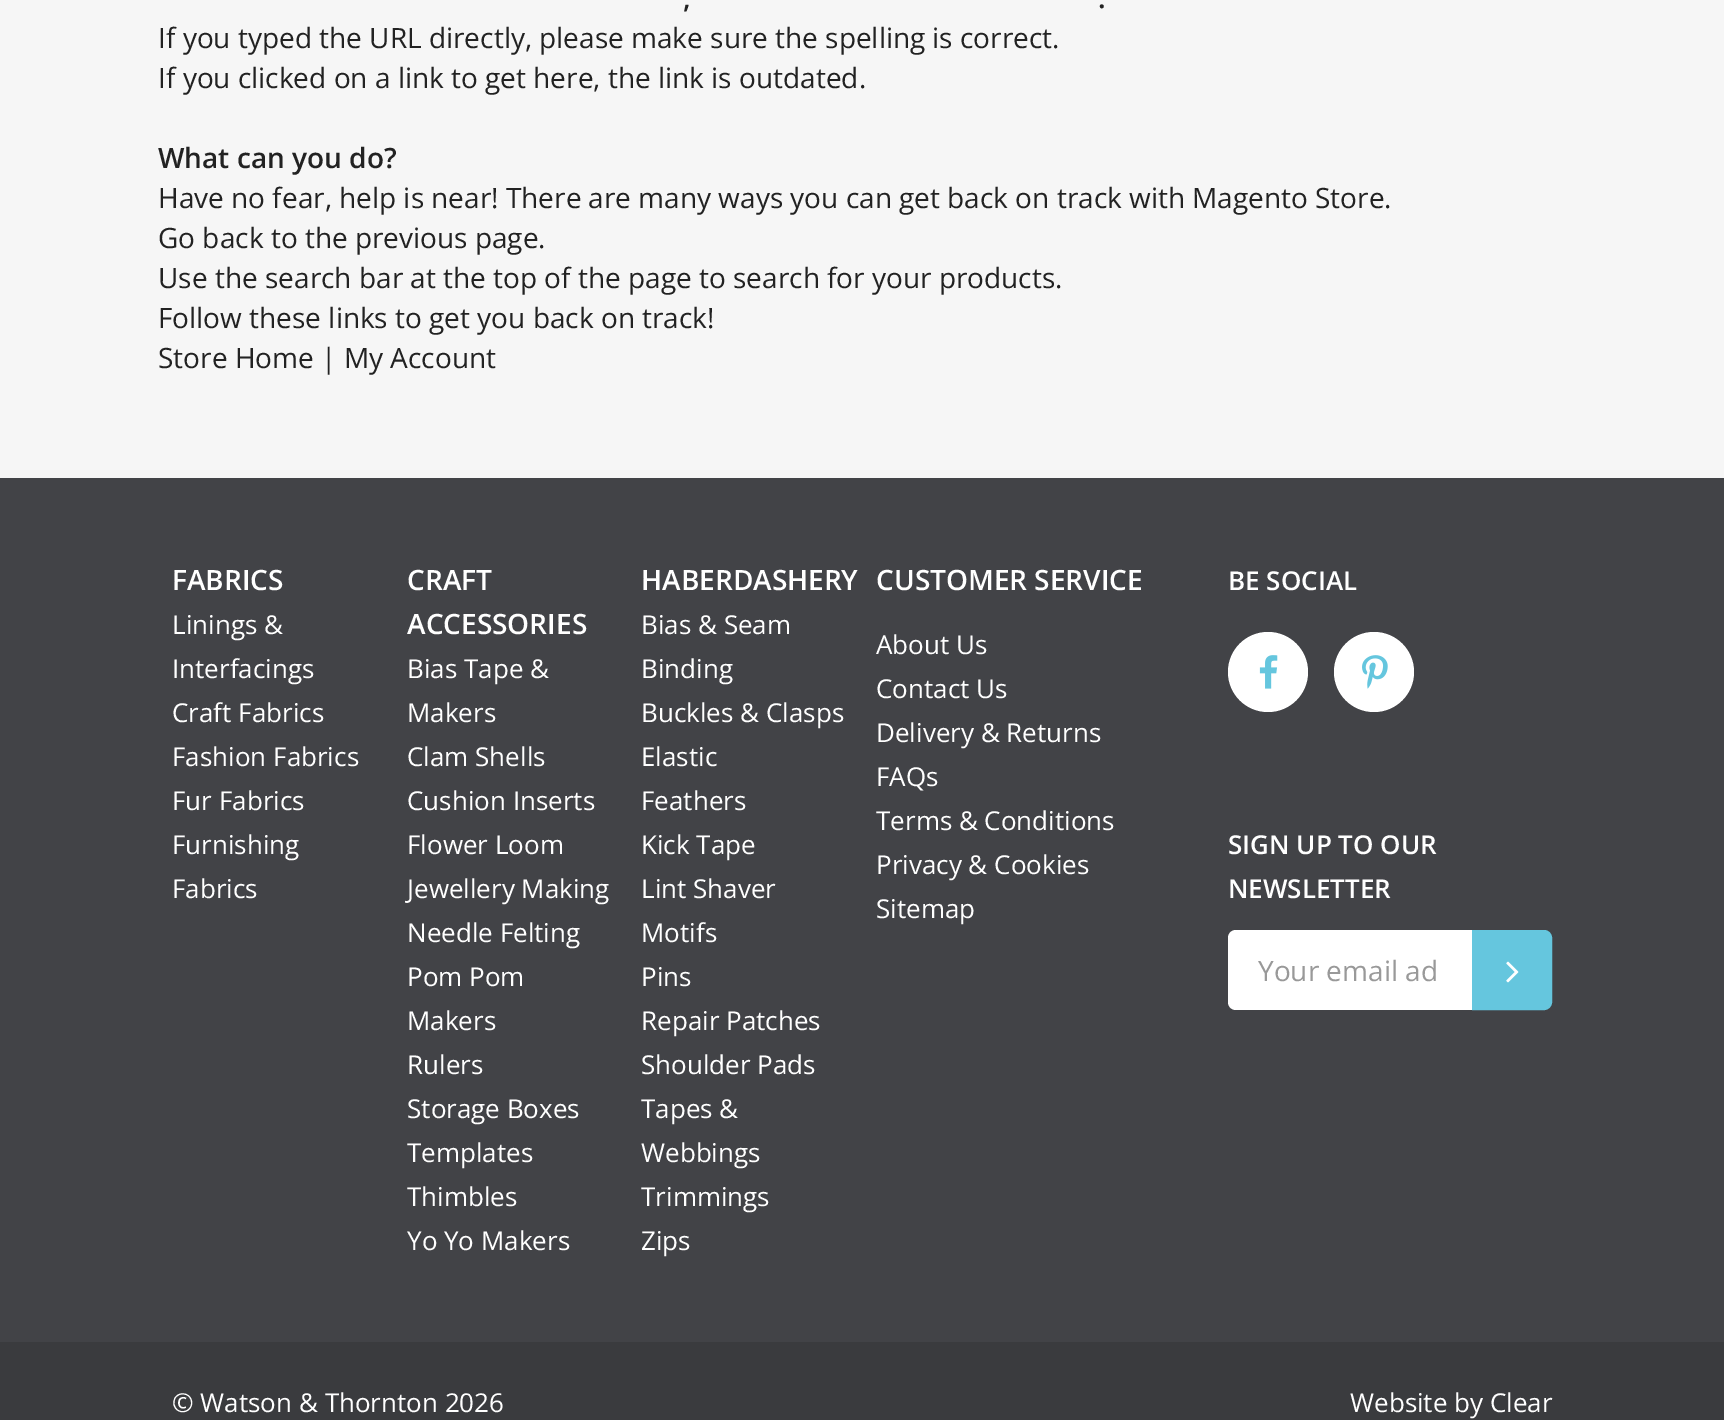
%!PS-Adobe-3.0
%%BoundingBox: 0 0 1724 1420
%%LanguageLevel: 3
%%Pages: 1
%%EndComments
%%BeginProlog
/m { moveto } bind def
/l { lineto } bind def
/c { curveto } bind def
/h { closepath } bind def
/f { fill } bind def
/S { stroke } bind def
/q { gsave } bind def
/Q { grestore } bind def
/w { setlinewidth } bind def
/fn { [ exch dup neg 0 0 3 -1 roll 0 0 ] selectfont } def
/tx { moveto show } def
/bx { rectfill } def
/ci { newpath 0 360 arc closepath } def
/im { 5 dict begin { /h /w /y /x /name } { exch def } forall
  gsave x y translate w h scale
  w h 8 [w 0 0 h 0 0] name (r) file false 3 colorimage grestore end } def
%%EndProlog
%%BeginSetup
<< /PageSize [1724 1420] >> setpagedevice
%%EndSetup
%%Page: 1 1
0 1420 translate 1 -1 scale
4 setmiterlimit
0.965 setgray
0 0 1724 1420 bx
/OpenSans-SemiBold 28 fn
0.133 setgray
(,) 683 8 tx
(.) 1098 8 tx
/OpenSans-Regular 28 fn
(If you typed the URL directly, please make sure the spelling is correct.) 158 48 tx
(If you clicked on a link to get here, the link is outdated.) 158 88 tx
/OpenSans-SemiBold 28 fn
(What can you do?) 158 168 tx
/OpenSans-Regular 28 fn
(Have no fear, help is near! There are many ways you can get back on track with Magento Store.) 158 208 tx
(Go back to the previous page.) 158 248 tx
(Use the search bar at the top of the page to search for your products.) 158 288 tx
(Follow these links to get you back on track!) 158 328 tx
(Store Home | My Account) 158 368 tx
0.259 0.263 0.278 setrgbcolor
0 478 1724 864 bx
/OpenSans-SemiBold 28 fn
1 setgray
(FABRICS) 172 590 tx
/OpenSans-Regular 26 fn
(Linings &) 172 634 tx
(Interfacings) 172 678 tx
(Craft Fabrics) 172 722 tx
(Fashion Fabrics) 172 766 tx
(Fur Fabrics) 172 810 tx
(Furnishing) 172 854 tx
(Fabrics) 172 898 tx
/OpenSans-SemiBold 28 fn
(CRAFT) 407 590 tx
(ACCESSORIES) 407 634 tx
/OpenSans-Regular 26 fn
(Bias Tape &) 407 678 tx
(Makers) 407 722 tx
(Clam Shells) 407 766 tx
(Cushion Inserts) 407 810 tx
(Flower Loom) 407 854 tx
(Jewellery Making) 407 898 tx
(Needle Felting) 407 942 tx
(Pom Pom) 407 986 tx
(Makers) 407 1030 tx
(Rulers) 407 1074 tx
(Storage Boxes) 407 1118 tx
(Templates) 407 1162 tx
(Thimbles) 407 1206 tx
(Yo Yo Makers) 407 1250 tx
/OpenSans-SemiBold 28 fn
(HABERDASHERY) 641 590 tx
/OpenSans-Regular 26 fn
(Bias & Seam) 641 634 tx
(Binding) 641 678 tx
(Buckles & Clasps) 641 722 tx
(Elastic) 641 766 tx
(Feathers) 641 810 tx
(Kick Tape) 641 854 tx
(Lint Shaver) 641 898 tx
(Motifs) 641 942 tx
(Pins) 641 986 tx
(Repair Patches) 641 1030 tx
(Shoulder Pads) 641 1074 tx
(Tapes &) 641 1118 tx
(Webbings) 641 1162 tx
(Trimmings) 641 1206 tx
(Zips) 641 1250 tx
/OpenSans-SemiBold 28 fn
(CUSTOMER SERVICE) 876 590 tx
/OpenSans-Regular 26 fn
(About Us) 876 654 tx
(Contact Us) 876 698 tx
(Delivery & Returns) 876 742 tx
(FAQs) 876 786 tx
(Terms & Conditions) 876 830 tx
(Privacy & Cookies) 876 874 tx
(Sitemap) 876 918 tx
/OpenSans-SemiBold 26 fn
(BE SOCIAL) 1228 590 tx
1268 672 40 ci f
(image0.raw) 1259 655 19 34 im
1374 672 40 ci f
(image1.raw) 1362 655 26 34 im
(SIGN UP TO OUR) 1228 854 tx
(NEWSLETTER) 1228 898 tx
1236 930 m 1474 930 l 1474 1010 l 1236 1010 l 1231.5 1010 1228 1006.5 1228 1002 c 1228 938 l 1228 933.5 1231.5 930 1236 930 c h f
/OpenSans-Regular 28 fn
0.6 setgray
(Your email ad) 1258 981 tx
0.396 0.776 0.871 setrgbcolor
1473 931 m 1544 931 l 1548 931 1551 934 1551 938 c 1551 1002 l 1551 1006 1548 1009 1544 1009 c 1473 1009 l h q f Q
2 w
S
(image2.raw) 1506 961 13 22 im
0.227 0.231 0.243 setrgbcolor
0 1342 1724 78 bx
/OpenSans-Regular 26 fn
1 setgray
(© Watson & Thornton 2026) 172 1412 tx
(Website by Clear) 1350 1412 tx
showpage
%%EOF
